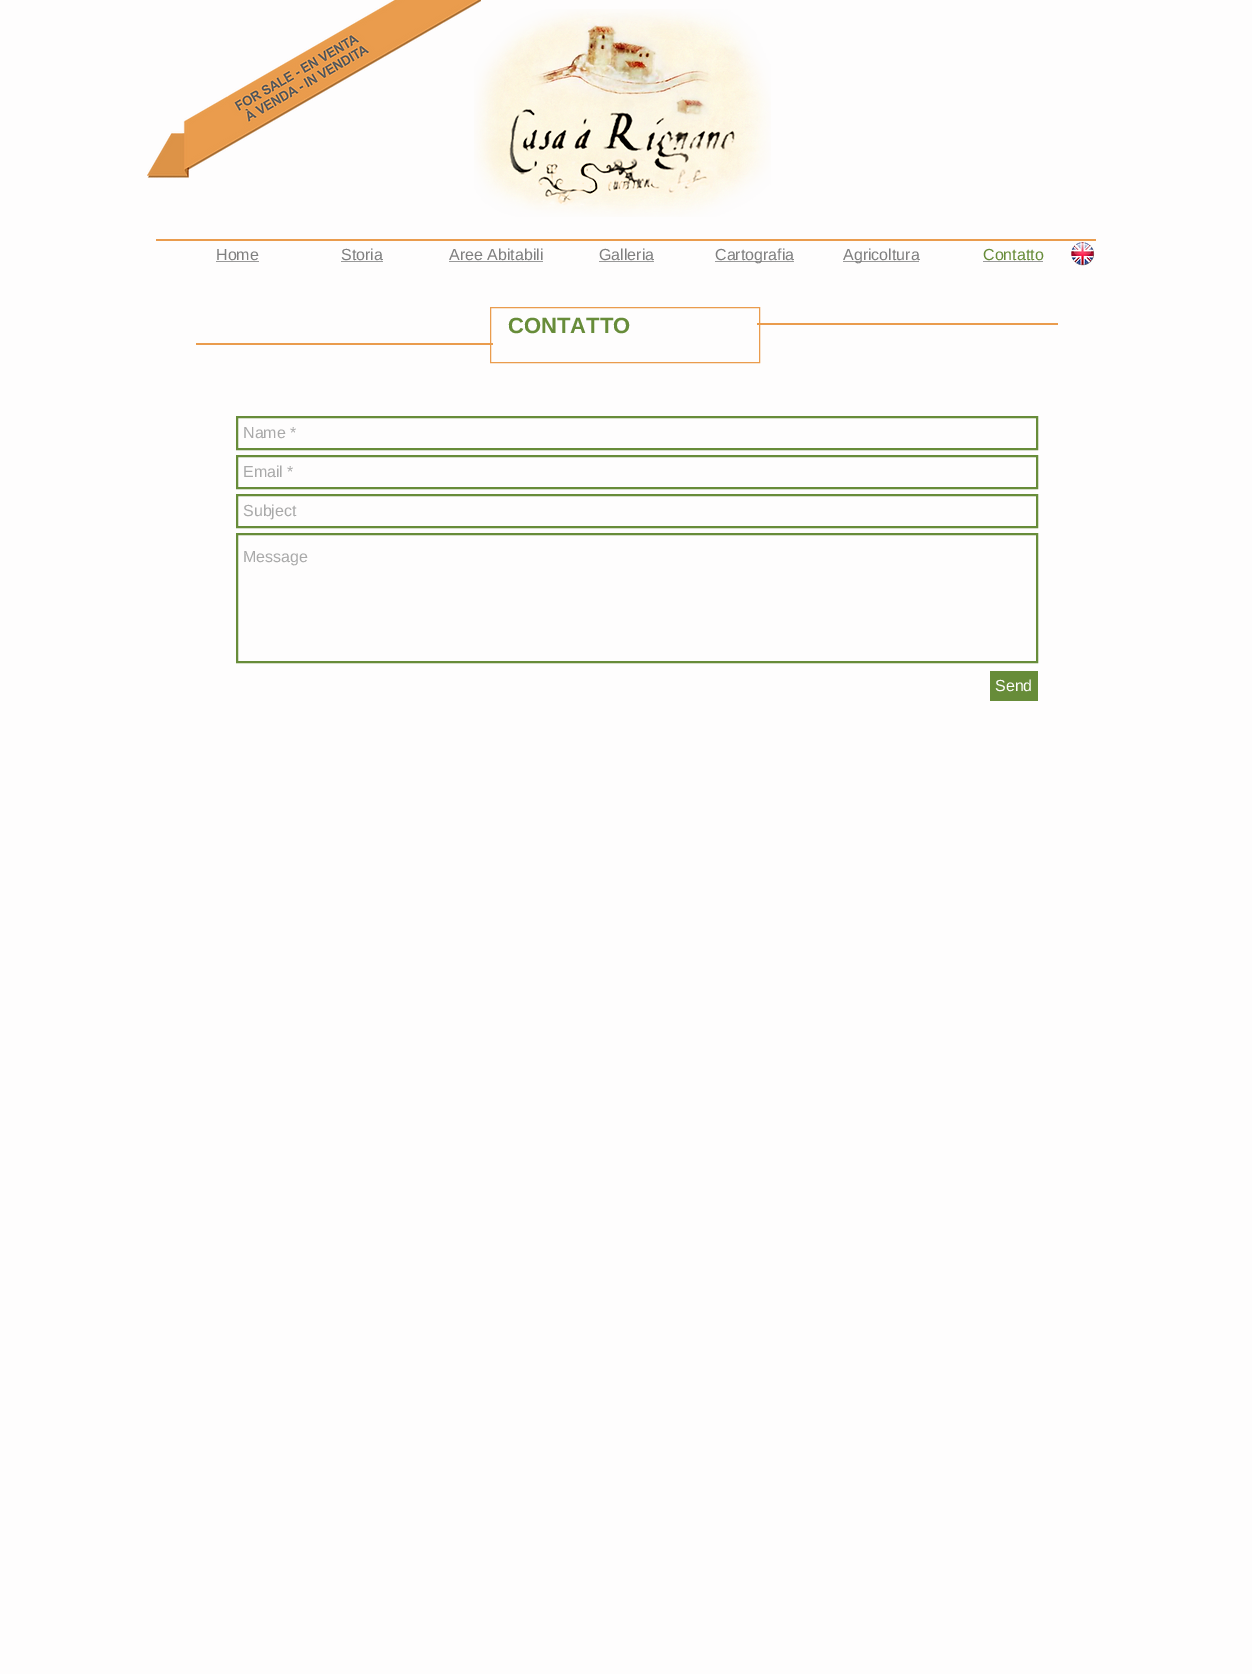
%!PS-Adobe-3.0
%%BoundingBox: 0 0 1252 1674
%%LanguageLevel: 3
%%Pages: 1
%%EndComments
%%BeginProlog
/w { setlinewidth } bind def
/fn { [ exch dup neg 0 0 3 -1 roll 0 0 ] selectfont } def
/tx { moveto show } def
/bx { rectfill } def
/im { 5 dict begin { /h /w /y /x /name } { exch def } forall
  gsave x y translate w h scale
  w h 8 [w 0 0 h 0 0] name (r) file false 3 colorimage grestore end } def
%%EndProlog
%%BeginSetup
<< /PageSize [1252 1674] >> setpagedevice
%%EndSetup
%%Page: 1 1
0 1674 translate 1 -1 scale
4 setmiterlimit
0.996 0.992 0.992 setrgbcolor
0 0 1252 1674 bx
(image1.raw) 474 9 297 208 im
(image0.raw) 147 0 334 178 im
0.918 0.612 0.302 setrgbcolor
156 239 940 2 bx
/LiberationSans-Regular 16 fn
0.498 setgray
(Home) 216 260 tx
0.6 setgray
216 261 43 1 bx
0.498 setgray
(Storia) 341 260 tx
0.6 setgray
341 261 42 1 bx
0.498 setgray
(Aree Abitabili) 449 260 tx
0.6 setgray
449 261 94 1 bx
0.498 setgray
(Galleria) 599 260 tx
0.6 setgray
599 261 55 1 bx
715 261 79 1 bx
0.498 setgray
(Cartografia) 715 260 tx
0.6 setgray
843 261 76 1 bx
0.498 setgray
(Agricoltura) 843 260 tx
0.404 0.549 0.224 setrgbcolor
(Contatto) 983 260 tx
0.6 setgray
983 261 60 1 bx
(image2.raw) 1071 242 24 24 im
0.918 0.612 0.302 setrgbcolor
490.5 307.5 269 55 rectstroke
/LiberationSans-Bold 22 fn
0.404 0.549 0.224 setrgbcolor
(CONTATTO) 508 333 tx
0.918 0.612 0.302 setrgbcolor
757 323 301 2 bx
196 343 297 2 bx
0.404 0.549 0.224 setrgbcolor
2 w
237 417 800 32 rectstroke
/LiberationSans-Regular 16 fn
0.663 setgray
(Name *) 243 438 tx
0.404 0.549 0.224 setrgbcolor
237 456 800 32 rectstroke
0.663 setgray
(Email *) 243 477 tx
0.404 0.549 0.224 setrgbcolor
237 495 800 32 rectstroke
0.663 setgray
(Subject) 243 516 tx
0.404 0.549 0.224 setrgbcolor
237 534 800 128 rectstroke
0.663 setgray
(Message) 243 562 tx
0.404 0.549 0.224 setrgbcolor
990 671 48 30 bx
0.996 0.992 0.992 setrgbcolor
(Send) 995 691 tx
showpage
%%EOF
